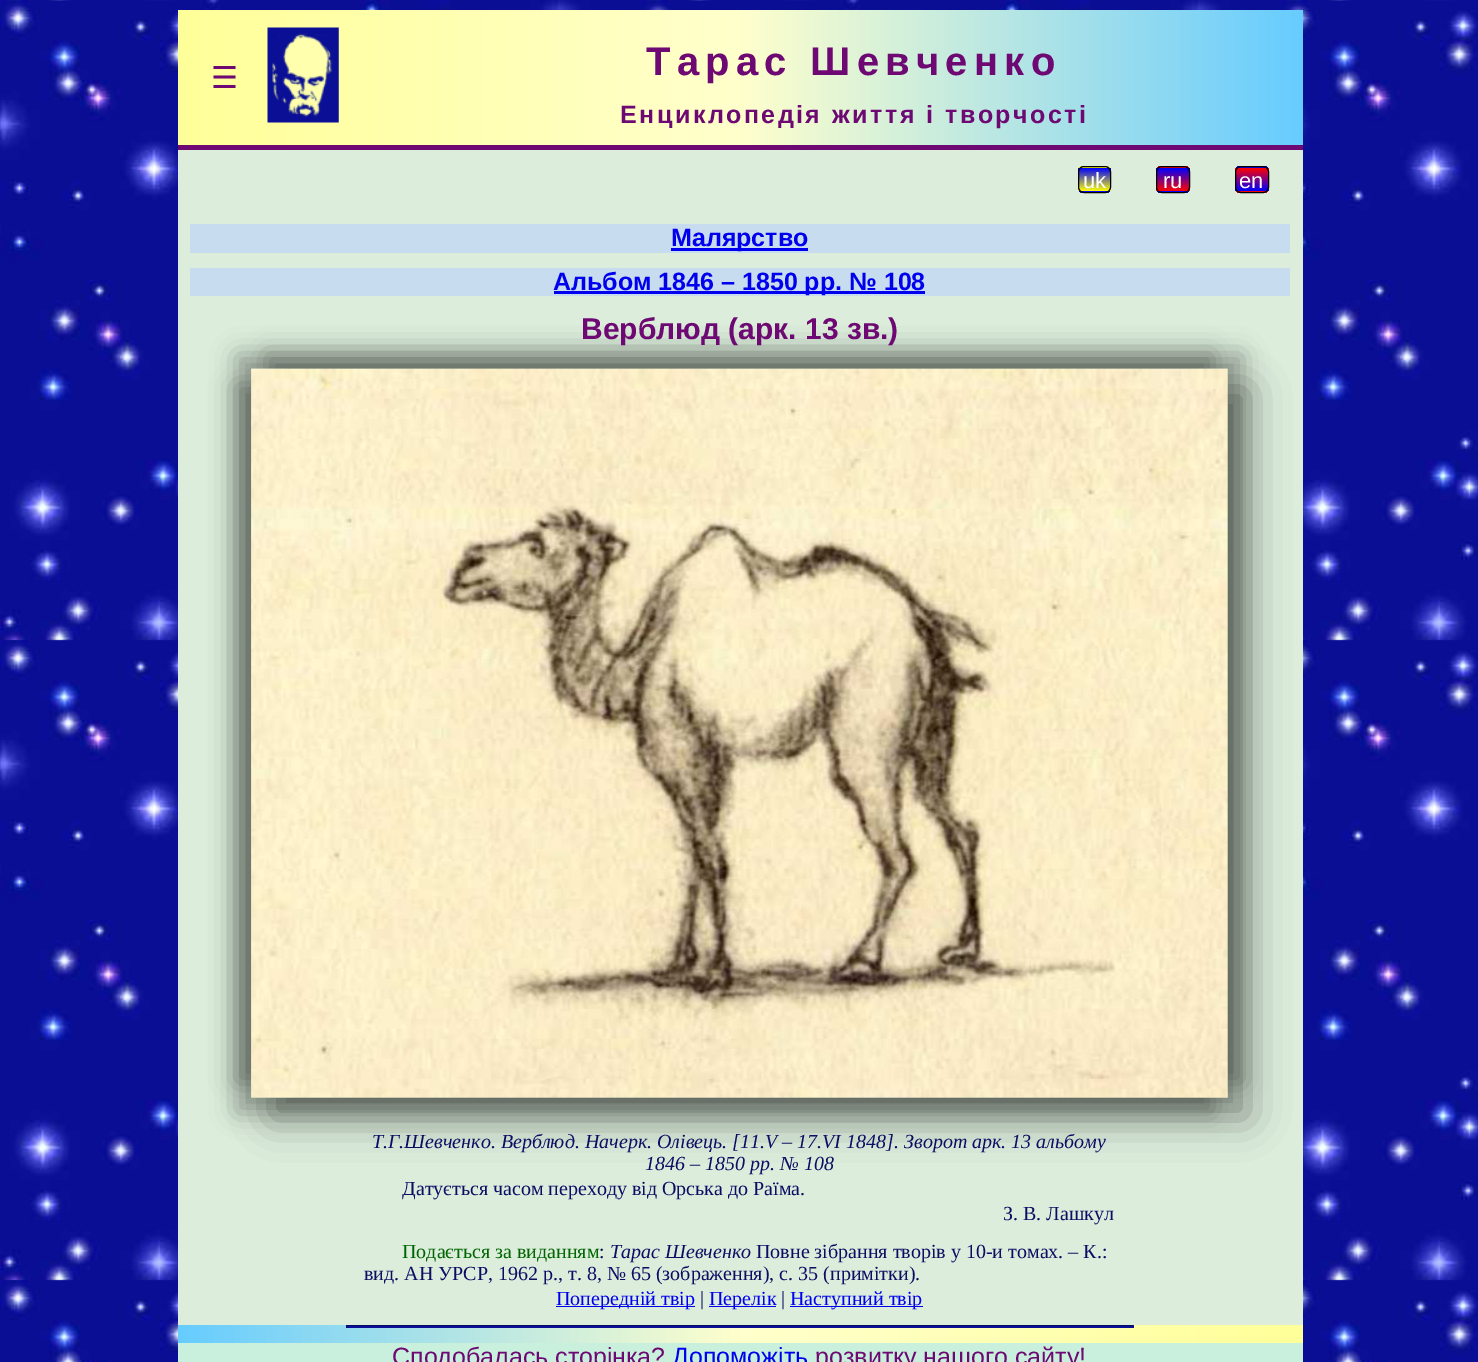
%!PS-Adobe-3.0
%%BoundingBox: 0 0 1478 1362
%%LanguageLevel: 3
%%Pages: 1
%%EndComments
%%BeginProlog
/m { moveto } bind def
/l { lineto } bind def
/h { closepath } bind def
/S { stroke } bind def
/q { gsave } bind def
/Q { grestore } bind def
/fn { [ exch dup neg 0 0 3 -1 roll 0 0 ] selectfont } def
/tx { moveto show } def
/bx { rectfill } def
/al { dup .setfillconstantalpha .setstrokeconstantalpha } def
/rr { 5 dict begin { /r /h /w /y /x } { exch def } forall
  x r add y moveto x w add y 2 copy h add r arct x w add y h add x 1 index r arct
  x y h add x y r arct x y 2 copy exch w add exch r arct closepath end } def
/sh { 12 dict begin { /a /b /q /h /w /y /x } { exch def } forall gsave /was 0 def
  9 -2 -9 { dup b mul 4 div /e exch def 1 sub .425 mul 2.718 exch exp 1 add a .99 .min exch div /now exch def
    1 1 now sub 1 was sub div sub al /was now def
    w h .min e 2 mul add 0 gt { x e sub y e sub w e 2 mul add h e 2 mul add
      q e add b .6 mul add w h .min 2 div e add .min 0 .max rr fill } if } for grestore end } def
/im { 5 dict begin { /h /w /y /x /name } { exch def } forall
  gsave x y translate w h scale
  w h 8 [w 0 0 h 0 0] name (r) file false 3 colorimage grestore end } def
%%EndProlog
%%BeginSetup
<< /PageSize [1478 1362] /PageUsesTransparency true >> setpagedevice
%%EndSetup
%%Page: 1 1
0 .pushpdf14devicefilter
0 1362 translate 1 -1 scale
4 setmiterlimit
1 setgray
0 0 1478 1362 bx
(image0.raw) 0 0 1478 1362 im
q 178 10 m 1303 10 l 1303 145 l 178 145 l h clip newpath
<< /ShadingType 2 /ColorSpace /DeviceRGB /Coords [178 78 1303 77] /Extend [true true] /Function << /FunctionType 3 /Domain [0 1] /Functions [<< /FunctionType 2 /Domain [0 1] /C0 [1 1 0.6] /C1 [1 1 0.8] /N 1 >> << /FunctionType 2 /Domain [0 1] /C0 [1 1 0.8] /C1 [0.4 0.8 1] /N 1 >>] /Bounds [0.5] /Encode [0 1 0 1] >> >> shfill Q
0.431 0.035 0.451 setrgbcolor
178 145 1125 5 bx
/DejaVuSans-Regular 30 fn
(☰) 211 88 tx
(image1.raw) 267 27 72 96 im
/LiberationSans-Bold 40 fn
646 75 m 6.25 0 (Тарас Шевченко) ashow
/LiberationSans-Bold 25 fn
620 123 m 2.5 0 (Енциклопедія життя і творчості) ashow
0.863 0.929 0.863 setrgbcolor
178 150 1125 1175 bx
q
1078 166 33 27 6 rr clip newpath
q 1078 166 m 1111 166 l 1111 168 l 1078 168 l h clip newpath
<< /ShadingType 2 /ColorSpace /DeviceRGB /Coords [1094 144 1094 168] /Extend [true true] /Function << /FunctionType 2 /Domain [0 1] /C0 [0 0 1] /C1 [1 1 0] /N 1 >> >> shfill Q
q 1078 168 m 1111 168 l 1111 191 l 1078 191 l h clip newpath
<< /ShadingType 2 /ColorSpace /DeviceRGB /Coords [1094 168 1094 191] /Extend [true true] /Function << /FunctionType 2 /Domain [0 1] /C0 [0 0 1] /C1 [1 1 0] /N 1 >> >> shfill Q
q 1078 191 m 1111 191 l 1111 193 l 1078 193 l h clip newpath
<< /ShadingType 2 /ColorSpace /DeviceRGB /Coords [1094 191 1094 215] /Extend [true true] /Function << /FunctionType 2 /Domain [0 1] /C0 [0 0 1] /C1 [1 1 0] /N 1 >> >> shfill Q
Q
0 setgray
1078.5 166.5 32 26 5.5 rr S
/LiberationSans-Regular 22 fn
1 setgray
(uk) 1083 188 tx
q
1156 166 34 27 6 rr clip newpath
q 1156 166 m 1190 166 l 1190 168 l 1156 168 l h clip newpath
<< /ShadingType 2 /ColorSpace /DeviceRGB /Coords [1173 144 1173 168] /Extend [true true] /Function << /FunctionType 2 /Domain [0 1] /C0 [0 0 1] /C1 [1 0 0] /N 1 >> >> shfill Q
q 1156 168 m 1190 168 l 1190 191 l 1156 191 l h clip newpath
<< /ShadingType 2 /ColorSpace /DeviceRGB /Coords [1173 168 1173 191] /Extend [true true] /Function << /FunctionType 2 /Domain [0 1] /C0 [0 0 1] /C1 [1 0 0] /N 1 >> >> shfill Q
q 1156 191 m 1190 191 l 1190 193 l 1156 193 l h clip newpath
<< /ShadingType 2 /ColorSpace /DeviceRGB /Coords [1173 191 1173 215] /Extend [true true] /Function << /FunctionType 2 /Domain [0 1] /C0 [0 0 1] /C1 [1 0 0] /N 1 >> >> shfill Q
Q
0 setgray
1156.5 166.5 33 26 5.5 rr S
1 setgray
(ru) 1163 188 tx
q
1235 166 34 27 6 rr clip newpath
q 1235 166 m 1269 166 l 1269 168 l 1235 168 l h clip newpath
<< /ShadingType 2 /ColorSpace /DeviceRGB /Coords [1252 144 1252 168] /Extend [true true] /Function << /FunctionType 2 /Domain [0 1] /C0 [1 0 0] /C1 [0 0 1] /N 1 >> >> shfill Q
q 1235 168 m 1269 168 l 1269 191 l 1235 191 l h clip newpath
<< /ShadingType 2 /ColorSpace /DeviceRGB /Coords [1252 168 1252 191] /Extend [true true] /Function << /FunctionType 2 /Domain [0 1] /C0 [1 0 0] /C1 [0 0 1] /N 1 >> >> shfill Q
q 1235 191 m 1269 191 l 1269 193 l 1235 193 l h clip newpath
<< /ShadingType 2 /ColorSpace /DeviceRGB /Coords [1252 191 1252 215] /Extend [true true] /Function << /FunctionType 2 /Domain [0 1] /C0 [1 0 0] /C1 [0 0 1] /N 1 >> >> shfill Q
Q
0 setgray
1235.5 166.5 33 26 5.5 rr S
1 setgray
(en) 1239 188 tx
0.784 0.863 0.941 setrgbcolor
190 224 1100 29 bx
0 0 0.933 setrgbcolor
671 248 137 3 bx
/LiberationSans-Bold 25 fn
(Малярство) 671 246 tx
0.784 0.863 0.941 setrgbcolor
190 268 1100 28 bx
0 0 0.933 setrgbcolor
554 291 371 3 bx
(Альбом 1846 – 1850 рр. № 108) 553 290 tx
0 setgray
271 389 977 729 0 20 0.4 sh
266 354 977 729 0 12.5 0.3 sh
236 384 977 729 0 12.5 0.3 sh
236 354 977 729 0 12.5 0.3 sh
(image2.raw) 251 368 977 730 im
/LiberationSans-Bold 30 fn
0.431 0.035 0.451 setrgbcolor
(Верблюд \(арк. 13 зв.\)) 581 339 tx
/LiberationSerif-Italic 20 fn
0.043 0.059 0.392 setrgbcolor
(Т.Г.Шевченко. Верблюд. Начерк. Олівець. [11.V – 17.VI 1848]. Зворот арк. 13 альбому) 372 1148 tx
(1846 – 1850 рр. № 108) 645 1170 tx
/LiberationSerif-Regular 20 fn
(Датується часом переходу від Орська до Раїма.) 402 1195 tx
(З. В. Лашкул) 1003 1220 tx
0 0.4 0 setrgbcolor
(Подається за виданням) 402 1258 tx
0.043 0.059 0.392 setrgbcolor
(:) 599 1258 tx
/LiberationSerif-Italic 20 fn
(Тарас Шевченко) 610 1258 tx
/LiberationSerif-Regular 20 fn
(Повне зібрання творів у 10-и томах. – К.:) 756 1258 tx
(вид. АН УРСР, 1962 р., т. 8, № 65 \(зображення\), с. 35 \(примітки\).) 364 1280 tx
0 0 0.933 setrgbcolor
556 1306 139 1 bx
(Попередній твір) 556 1305 tx
0.043 0.059 0.392 setrgbcolor
(|) 700 1305 tx
0 0 0.933 setrgbcolor
709 1306 67 1 bx
(Перелік) 709 1305 tx
0.043 0.059 0.392 setrgbcolor
(|) 781 1305 tx
0 0 0.933 setrgbcolor
790 1306 133 1 bx
(Наступний твір) 790 1305 tx
q 178 1325 m 1303 1325 l 1303 1343 l 178 1343 l h clip newpath
<< /ShadingType 2 /ColorSpace /DeviceRGB /Coords [178 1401 1303 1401] /Extend [true true] /Function << /FunctionType 3 /Domain [0 1] /Functions [<< /FunctionType 2 /Domain [0 1] /C0 [0.4 0.8 1] /C1 [1 1 0.8] /N 1 >> << /FunctionType 2 /Domain [0 1] /C0 [1 1 0.8] /C1 [1 1 0.6] /N 1 >>] /Bounds [0.5] /Encode [0 1 0 1] >> >> shfill Q
0.043 0.059 0.588 setrgbcolor
346 1326 788 2 bx
0.027 0.039 0.392 setrgbcolor
346 1325 788 1 bx
0.043 0.059 0.588 setrgbcolor
1133 1325 1 3 bx
0.027 0.039 0.392 setrgbcolor
346 1325 1 3 bx
0.784 0.941 0.863 setrgbcolor
178 1343 1125 19 bx
/LiberationSans-Regular 25 fn
0.431 0.035 0.451 setrgbcolor
(Сподобалась сторінка?) 392 1365 tx
0 0 0.933 setrgbcolor
(Допоможіть) 672 1365 tx
0.431 0.035 0.451 setrgbcolor
(розвитку нашого сайту!) 815 1365 tx
.poppdf14devicefilter showpage
%%EOF
